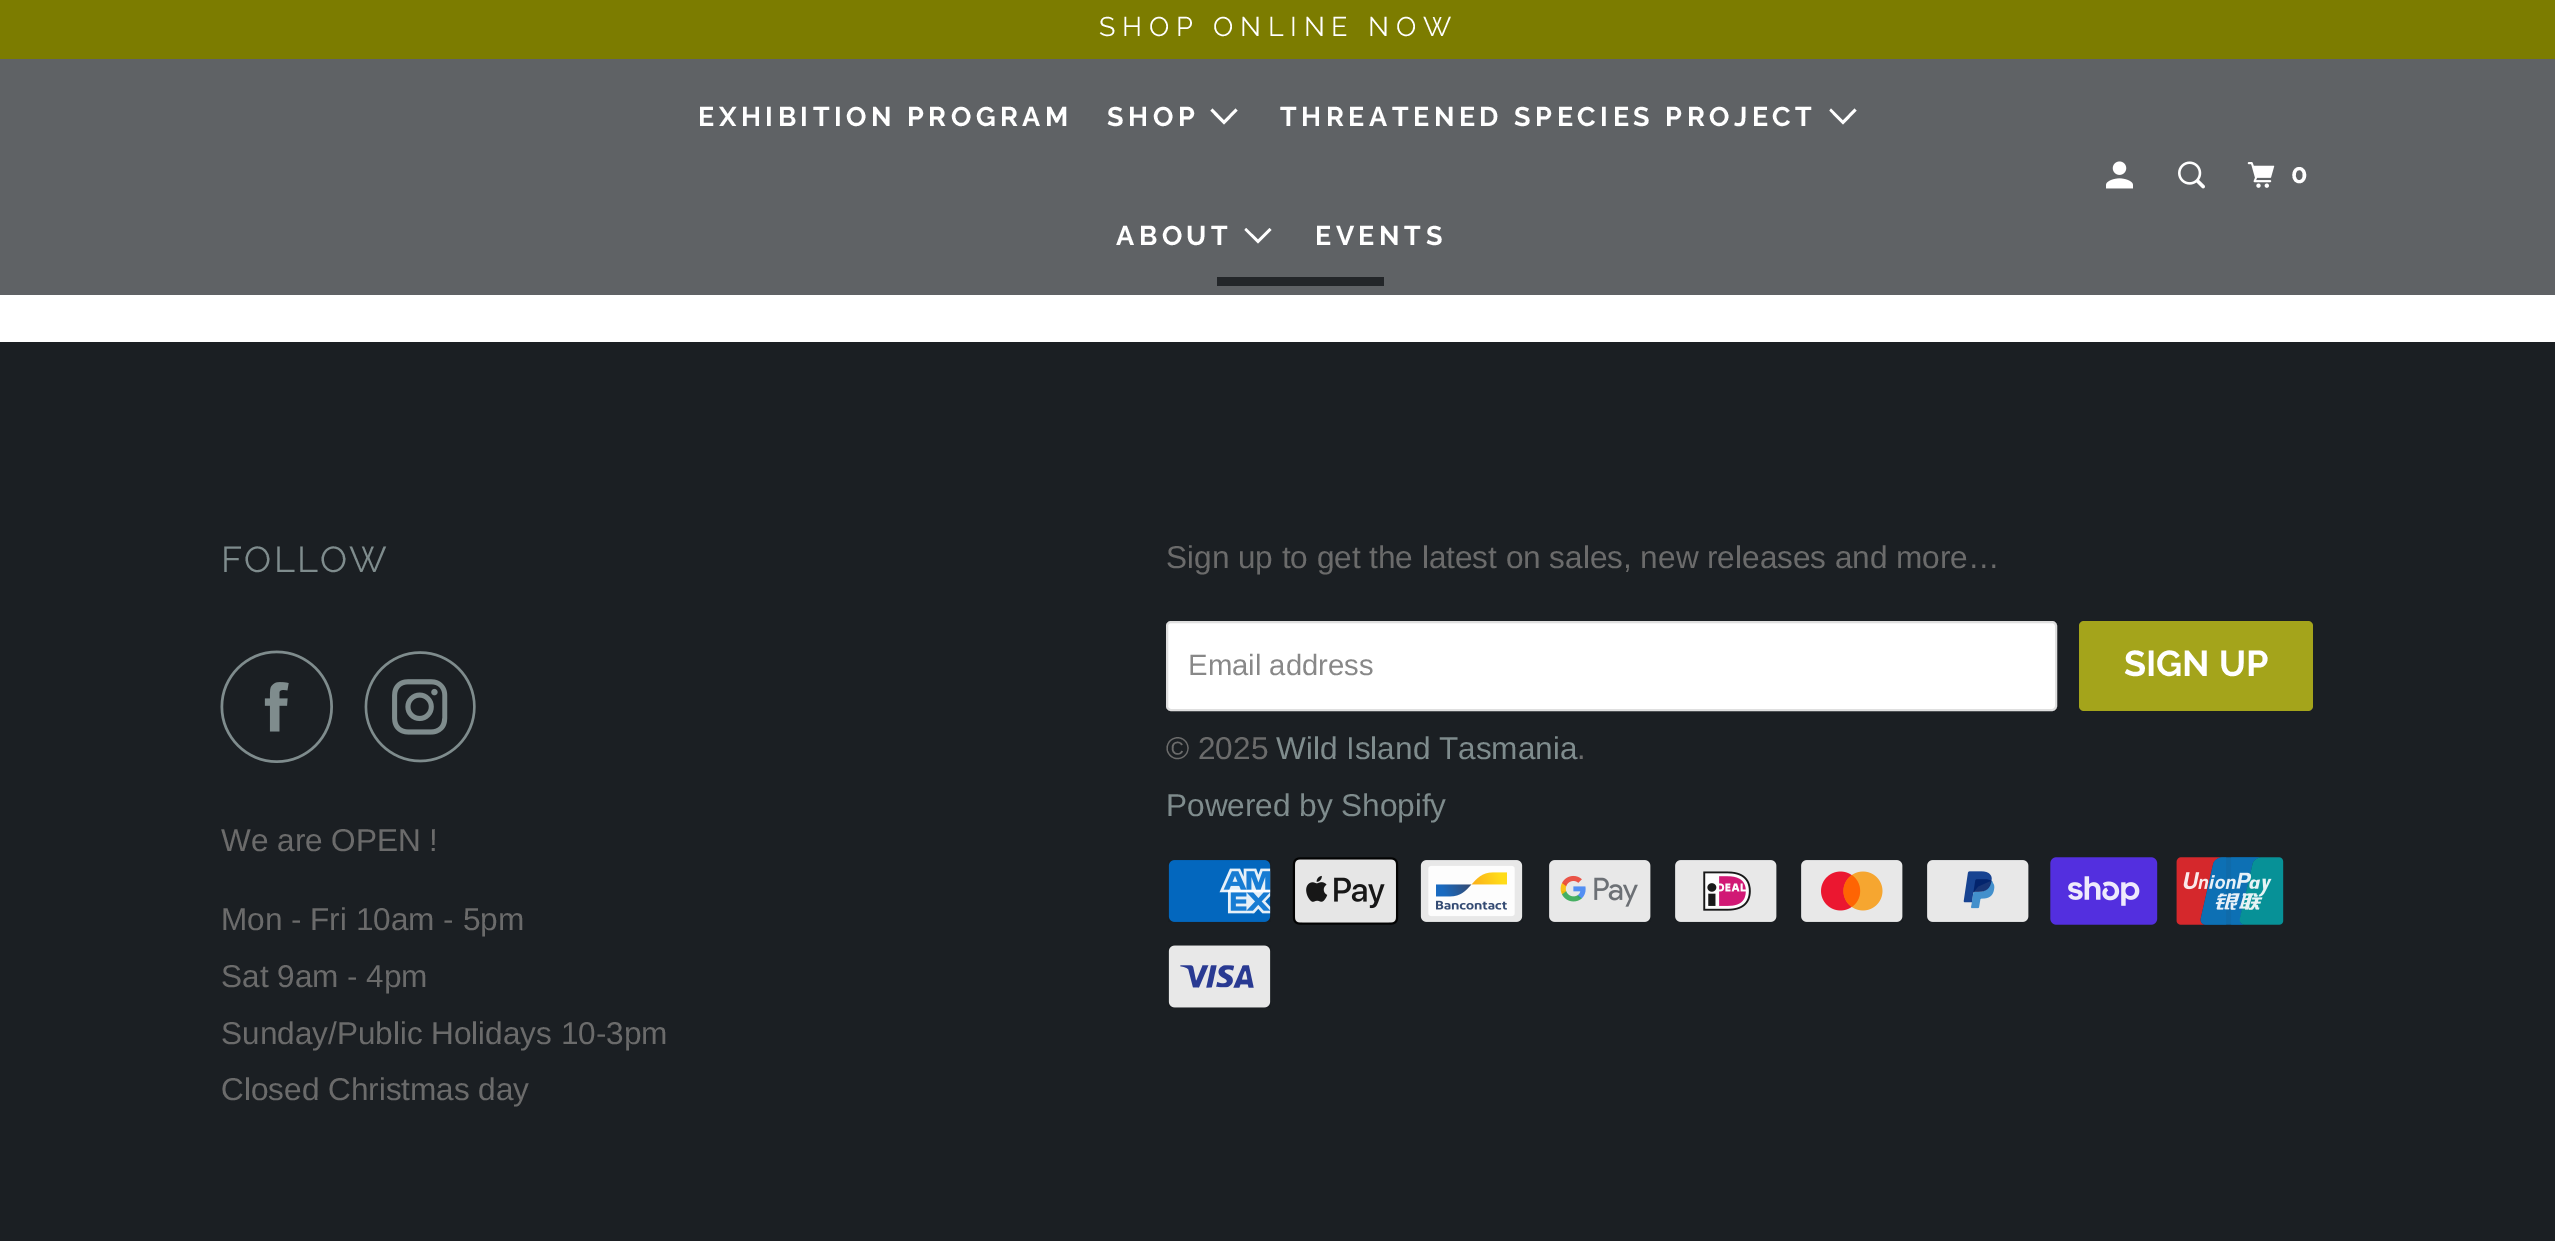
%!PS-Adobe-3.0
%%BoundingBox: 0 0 2555 1241
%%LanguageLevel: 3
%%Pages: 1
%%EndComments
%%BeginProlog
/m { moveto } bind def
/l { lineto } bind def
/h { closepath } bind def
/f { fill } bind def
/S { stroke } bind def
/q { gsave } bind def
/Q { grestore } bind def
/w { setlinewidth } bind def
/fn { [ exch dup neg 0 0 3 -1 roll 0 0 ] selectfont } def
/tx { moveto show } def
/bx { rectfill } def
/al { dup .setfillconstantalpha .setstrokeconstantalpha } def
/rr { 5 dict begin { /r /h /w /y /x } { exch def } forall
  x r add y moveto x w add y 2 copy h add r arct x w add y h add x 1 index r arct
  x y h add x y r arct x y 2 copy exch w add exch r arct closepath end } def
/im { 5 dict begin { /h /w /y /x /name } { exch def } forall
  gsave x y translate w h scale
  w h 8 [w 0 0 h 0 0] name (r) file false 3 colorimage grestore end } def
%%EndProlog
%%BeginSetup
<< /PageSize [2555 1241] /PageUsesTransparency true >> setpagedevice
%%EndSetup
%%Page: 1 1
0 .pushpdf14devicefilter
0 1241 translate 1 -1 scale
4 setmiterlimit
0.106 0.122 0.137 setrgbcolor
0 0 2555 1241 bx
1 setgray
0 59 2555 283 bx
0.486 0.486 0 setrgbcolor
0 0 2555 59 bx
/Raleway-Regular 27 fn
1 setgray
1099 36 m 6.75 0 (SHOP ONLINE NOW) ashow
0.212 setgray
1217 277 167 9 bx
0.7 al
0.106 0.122 0.137 setrgbcolor
0 59 2555 236 bx
/Raleway-Bold 27 fn
1 al
1 setgray
698 126 m 4.5 0 (EXHIBITION PROGRAM) ashow
1107 126 m 4.5 0 (SHOP) ashow
1217 117.5 m 1210.5 110.5 l 1212.5 108.5 l 1224 120.5 l 1235.5 108.5 l 1237.5 110.5 l 1224 124.5 l h f
1280 126 m 4.5 0 (THREATENED SPECIES PROJECT) ashow
1836 117.5 m 1829.5 110.5 l 1831 108.5 l 1843 120.5 l 1854.5 108.5 l 1856.5 110.5 l 1843 124.5 l h f
1116 245 m 4.5 0 (ABOUT) ashow
1251 236.5 m 1244.5 230 l 1246 228 l 1258 239.5 l 1269.5 228 l 1271.5 230 l 1258 243.5 l h f
1315 245 m 4.5 0 (EVENTS) ashow
(image0.raw) 2106 161 27 28 im
(image1.raw) 2178 161 27 28 im
(image2.raw) 2247 162 28 26 im
2291 183 m 4.5 0 (0) ashow
/Raleway-Regular 36 fn
0.498 0.549 0.553 setrgbcolor
221 572 m 2.25 0 (FOLLOW) ashow
(image3.raw) 220 650 113 113 im
(image4.raw) 364 651 112 112 im
/LiberationSans-Regular 31.5 fn
0.42 setgray
(We are OPEN !) 221 851 tx
(Mon - Fri 10am - 5pm) 221 930 tx
(Sat 9am - 4pm) 221 987 tx
(Sunday/Public Holidays 10-3pm) 221 1044 tx
(Closed Christmas day) 221 1100 tx
(Sign up to get the latest on sales, new releases and more…) 1166 568 tx
1 setgray
1167 622 889 88 4 rr q f Q
0.875 setgray
2 w
S
/LiberationSans-Regular 29.25 fn
0.533 setgray
(Email address) 1188 675 tx
0.643 0.643 0.106 setrgbcolor
2079 621 234 90 5 rr f
/Raleway-Bold 36 fn
1 setgray
(SIGN UP) 2124 676 tx
/LiberationSans-Regular 31.5 fn
0.42 setgray
(© 2025) 1166 759 tx
0.498 0.549 0.553 setrgbcolor
(Wild Island Tasmania) 1276 759 tx
0.42 setgray
(.) 1577 759 tx
0.498 0.549 0.553 setrgbcolor
(Powered by Shopify) 1166 816 tx
(image5.raw) 1168 860 103 62 im
(image6.raw) 1292 857 107 68 im
(image7.raw) 1420 860 103 62 im
(image8.raw) 1549 860 102 62 im
(image9.raw) 1675 860 102 62 im
(image10.raw) 1801 860 102 62 im
(image11.raw) 1927 860 102 62 im
(image12.raw) 2050 857 108 68 im
(image13.raw) 2176 857 108 68 im
(image14.raw) 1168 945 103 63 im
.poppdf14devicefilter showpage
%%EOF
